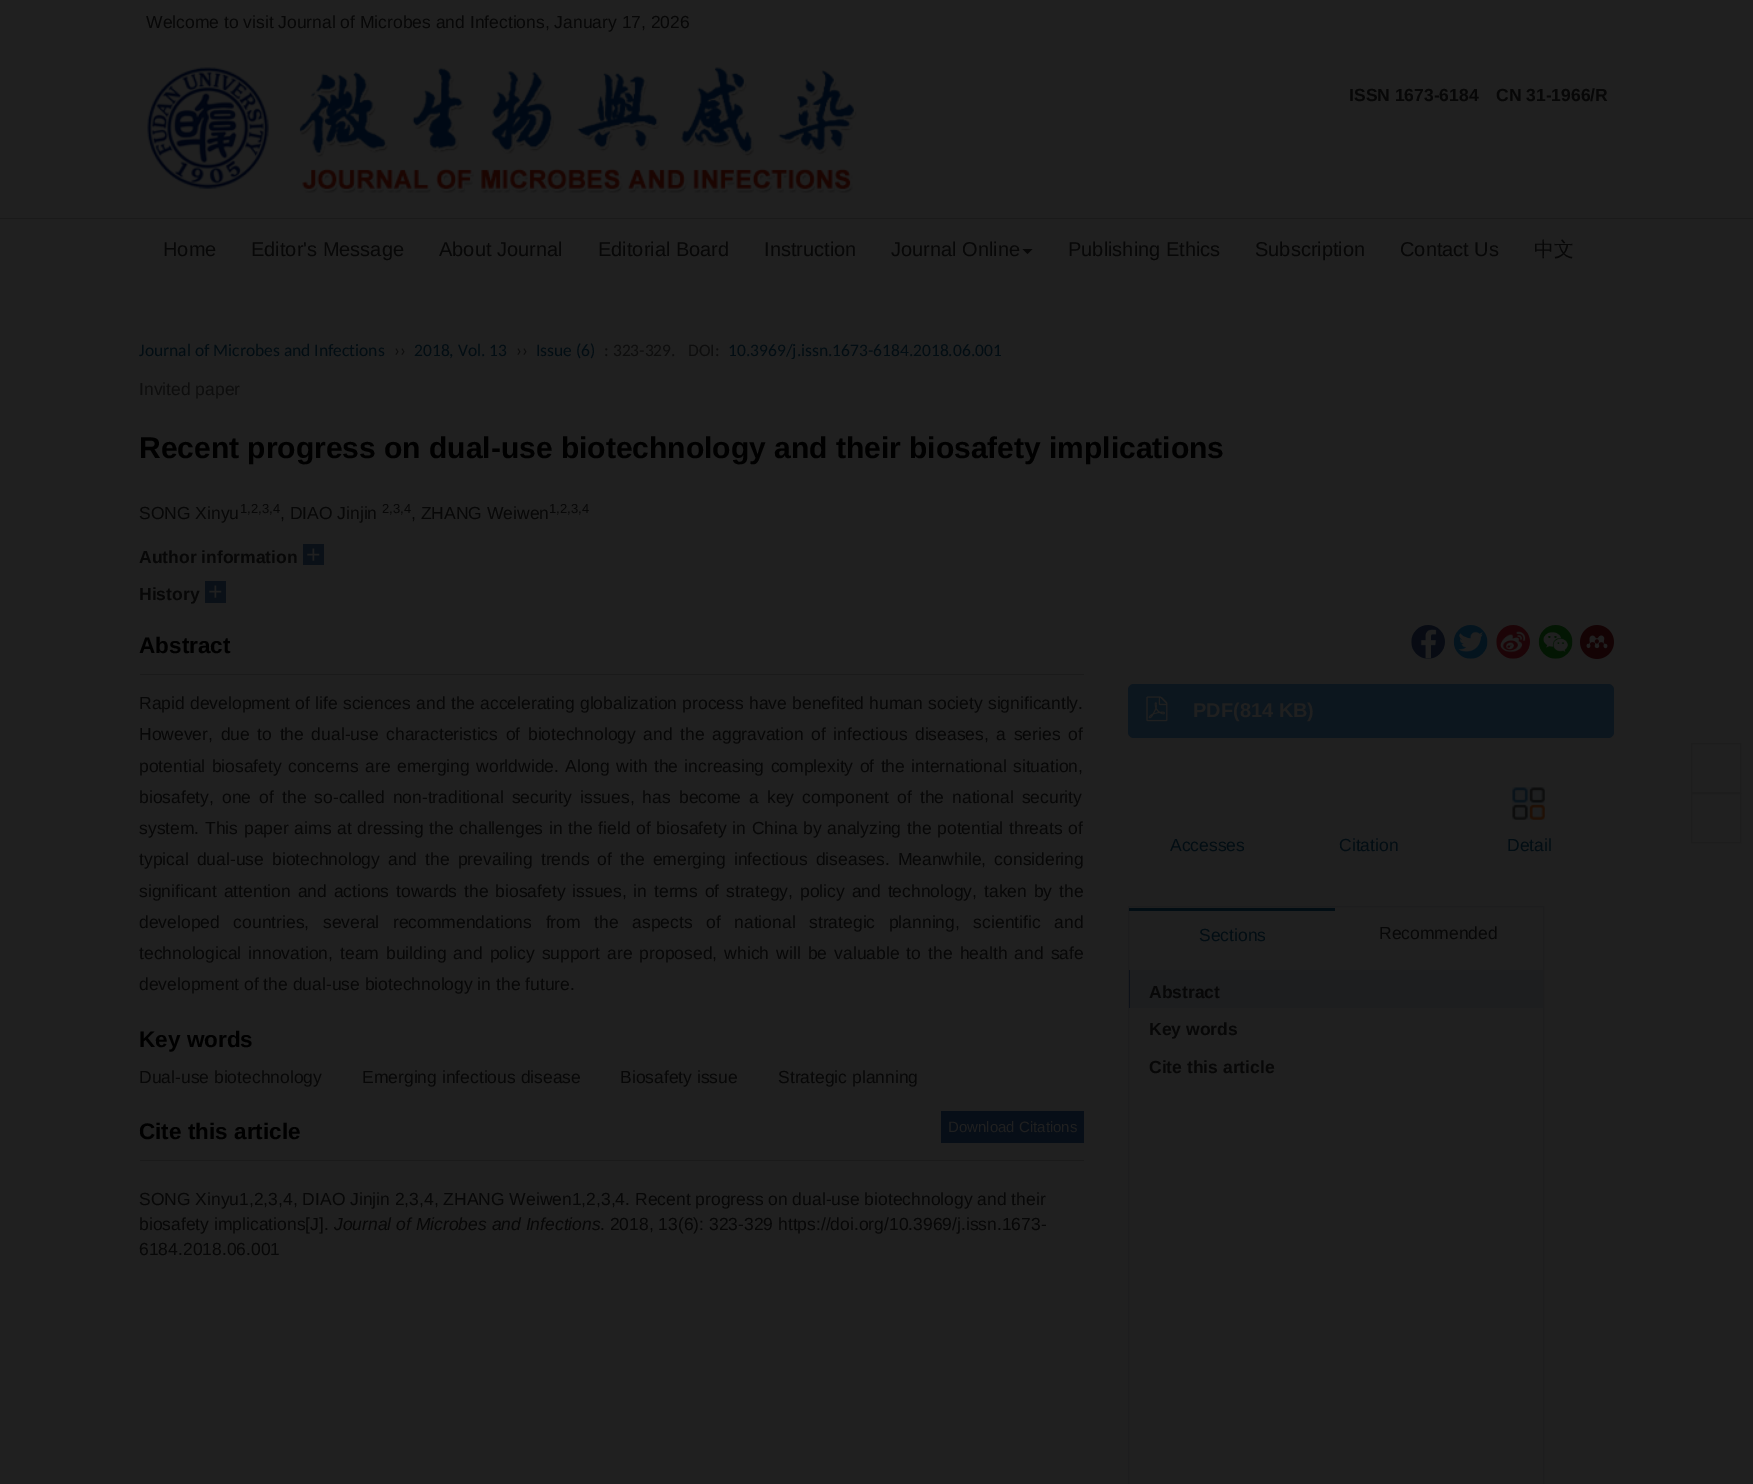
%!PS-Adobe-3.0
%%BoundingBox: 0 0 1753 1484
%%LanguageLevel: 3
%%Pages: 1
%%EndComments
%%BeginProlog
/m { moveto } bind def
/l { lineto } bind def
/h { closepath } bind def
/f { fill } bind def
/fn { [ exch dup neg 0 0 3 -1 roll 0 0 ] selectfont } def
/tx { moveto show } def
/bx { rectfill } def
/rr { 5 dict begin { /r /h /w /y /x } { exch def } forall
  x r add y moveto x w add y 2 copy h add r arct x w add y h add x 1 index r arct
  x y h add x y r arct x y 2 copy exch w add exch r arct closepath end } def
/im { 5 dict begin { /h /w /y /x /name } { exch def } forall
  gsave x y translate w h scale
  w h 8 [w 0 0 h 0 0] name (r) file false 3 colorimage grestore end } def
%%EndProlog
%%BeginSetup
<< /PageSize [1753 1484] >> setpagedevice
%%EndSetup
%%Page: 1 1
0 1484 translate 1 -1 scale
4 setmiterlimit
0.125 setgray
0 0 1753 1484 bx
/LiberationSans-Regular 17.5 fn
0.027 setgray
(Welcome to visit Journal of Microbes and Infections, January 17, 2026) 146 28 tx
(image0.raw) 147 67 710 126 im
/LiberationSans-Bold 17.5 fn
(ISSN 1673-6184) 1349 101 tx
(CN 31-1966/R) 1496 101 tx
0.102 setgray
0 218 1753 1 bx
/LiberationSans-Regular 20 fn
0.027 setgray
(Home) 163 256 tx
(Editor's Message) 251 256 tx
(About Journal) 439 256 tx
(Editorial Board) 598 256 tx
(Instruction) 764 256 tx
(Journal Online) 891 256 tx
1022.5 249 m 1032.5 249 l 1027.5 254 l h f
(Publishing Ethics) 1068 256 tx
(Subscription) 1255 256 tx
(Contact Us) 1400 256 tx
/WenQuanYiZenHei-Medium 20 fn
(中文) 1534 256 tx
/Carlito-Regular 17.5 fn
0.008 0.051 0.075 setrgbcolor
(Journal of Microbes and Infections) 139 356 tx
0.051 setgray
(››) 394 356 tx
0.008 0.051 0.075 setrgbcolor
(2018, Vol. 13) 414 356 tx
0.051 setgray
(››) 516 356 tx
0.008 0.051 0.075 setrgbcolor
(Issue \(6\)) 536 356 tx
0.051 setgray
(: 323-329.) 604 356 tx
(DOI:) 688 356 tx
0.008 0.051 0.075 setrgbcolor
(10.3969/j.issn.1673-6184.2018.06.001) 728 356 tx
/LiberationSans-Regular 17.5 fn
0.051 setgray
(Invited paper) 139 395 tx
/LiberationSans-Bold 30 fn
0 setgray
(Recent progress on dual-use biotechnology and their biosafety implications) 139 458 tx
/LiberationSans-Regular 17.5 fn
0.027 setgray
(SONG Xinyu) 139 519 tx
/LiberationSans-Regular 13 fn
(1,2,3,4) 240 513 tx
/LiberationSans-Regular 17.5 fn
(, DIAO Jinjin) 280 519 tx
/LiberationSans-Regular 13 fn
(2,3,4) 382 513 tx
/LiberationSans-Regular 17.5 fn
(, ZHANG Weiwen) 411 519 tx
/LiberationSans-Regular 13 fn
(1,2,3,4) 549 513 tx
/LiberationSans-Bold 17.5 fn
(Author information) 139 563 tx
0.039 0.063 0.09 setrgbcolor
303 544 21 21 bx
/LiberationSans-Regular 25 fn
0.125 setgray
(+) 306 563 tx
/LiberationSans-Bold 17.5 fn
0.027 setgray
(History) 139 600 tx
0.039 0.063 0.09 setrgbcolor
205 581 21 22 bx
/LiberationSans-Regular 25 fn
0.125 setgray
(+) 208 600 tx
0.102 setgray
140 674 944 1 bx
/LiberationSans-Bold 22.5 fn
0 setgray
(Abstract) 139 653 tx
/LiberationSans-Regular 17.5 fn
0.027 setgray
139 709 m 0.4 0 32 (Rapid development of life sciences and the accelerating globalization process have benefited human society significantly.) widthshow
139 740 m 2.75 0 32 (However, due to the dual-use characteristics of biotechnology and the aggravation of infectious diseases, a series of) widthshow
139 772 m 1.5 0 32 (potential biosafety concerns are emerging worldwide. Along with the increasing complexity of the international situation,) widthshow
139 803 m 3.25 0 32 (biosafety, one of the so-called non-traditional security issues, has become a key component of the national security) widthshow
139 834 m 0.9 0 32 (system. This paper aims at dressing the challenges in the field of biosafety in China by analyzing the potential threats of) widthshow
139 865 m 3.25 0 32 (typical dual-use biotechnology and the prevailing trends of the emerging infectious diseases. Meanwhile, considering) widthshow
139 897 m 2 0 32 (significant attention and actions towards the biosafety issues, in terms of strategy, policy and technology, taken by the) widthshow
139 928 m 8.75 0 32 (developed countries, several recommendations from the aspects of national strategic planning, scientific and) widthshow
139 959 m 2.25 0 32 (technological innovation, team building and policy support are proposed, which will be valuable to the health and safe) widthshow
(development of the dual-use biotechnology in the future.) 139 990 tx
/LiberationSans-Bold 22.5 fn
0 setgray
(Key words) 139 1047 tx
/LiberationSans-Regular 17.5 fn
0.027 setgray
(Dual-use biotechnology) 139 1083 tx
(Emerging infectious disease) 362 1083 tx
(Biosafety issue) 620 1083 tx
(Strategic planning) 778 1083 tx
0.102 setgray
140 1160 944 1 bx
/LiberationSans-Bold 22.5 fn
0 setgray
(Cite this article) 139 1139 tx
0.027 0.055 0.09 setrgbcolor
941 1111 143 32 bx
/LiberationSans-Regular 15 fn
0.125 setgray
(Download Citations) 948 1132 tx
/LiberationSans-Regular 17.5 fn
0.027 setgray
(SONG Xinyu1,2,3,4, DIAO Jinjin 2,3,4, ZHANG Weiwen1,2,3,4. Recent progress on dual-use biotechnology and their) 139 1205 tx
(biosafety implications[J].) 139 1230 tx
/LiberationSans-Italic 17.5 fn
(Journal of Microbes and Infections) 334 1230 tx
/LiberationSans-Regular 17.5 fn
(. 2018, 13\(6\): 323-329 https://doi.org/10.3969/j.issn.1673-) 600 1230 tx
(6184.2018.06.001) 139 1255 tx
(image1.raw) 1411 625 34 34 im
(image2.raw) 1453 625 35 34 im
(image3.raw) 1496 625 34 34 im
(image4.raw) 1538 625 35 34 im
(image5.raw) 1580 625 34 34 im
0.047 0.086 0.118 setrgbcolor
1128 684 486 54 6 rr f
(image6.raw) 1146 696 22 26 im
/LiberationSans-Bold 20 fn
0.125 setgray
(PDF\(814 KB\)) 1193 717 tx
/LiberationSans-Regular 17.5 fn
0.008 0.051 0.075 setrgbcolor
(Accesses) 1170 851 tx
(Citation) 1339 851 tx
(image7.raw) 1512 787 33 33 im
(Detail) 1507 851 tx
0.114 0.114 0.118 setrgbcolor
1128.5 906.5 415 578 rectstroke
0.008 0.051 0.075 setrgbcolor
1129 908 206 3 bx
(Sections) 1199 941 tx
0.027 setgray
(Recommended) 1379 939 tx
0.114 0.118 0.122 setrgbcolor
1130 970 413 38 bx
0.051 0.067 0.094 setrgbcolor
1129 970 1 38 bx
/LiberationSans-Bold 17.5 fn
0.027 setgray
(Abstract) 1149 998 tx
(Key words) 1149 1035 tx
(Cite this article) 1149 1073 tx
0.114 setgray
1691.5 743.5 49 49 rectstroke
1691.5 793.5 49 49 rectstroke
showpage
%%EOF
